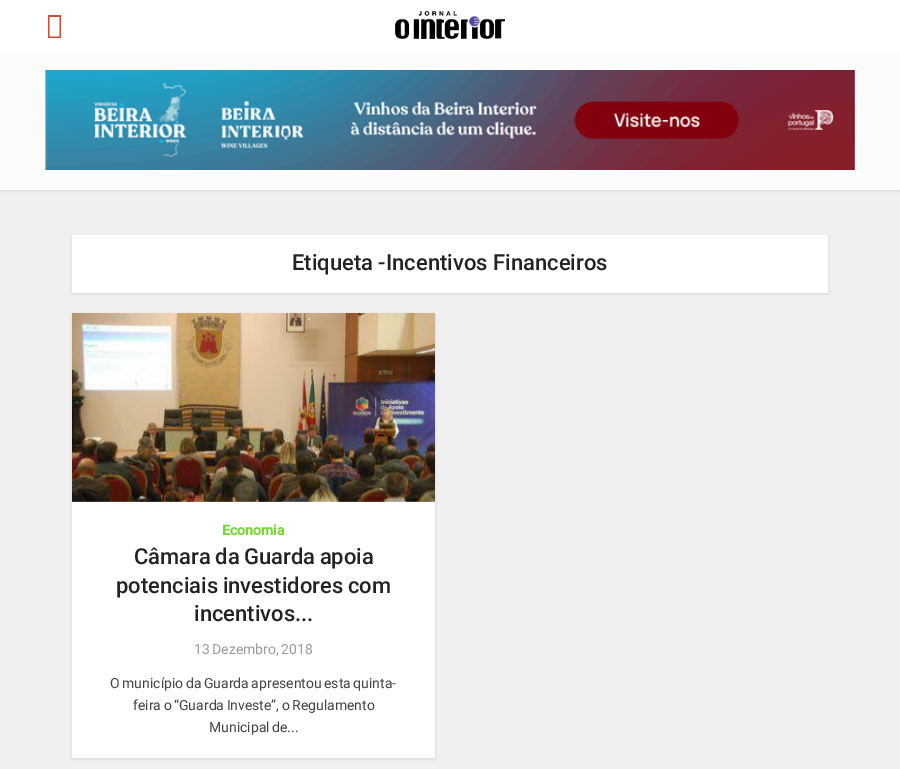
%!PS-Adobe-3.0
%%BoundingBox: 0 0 900 769
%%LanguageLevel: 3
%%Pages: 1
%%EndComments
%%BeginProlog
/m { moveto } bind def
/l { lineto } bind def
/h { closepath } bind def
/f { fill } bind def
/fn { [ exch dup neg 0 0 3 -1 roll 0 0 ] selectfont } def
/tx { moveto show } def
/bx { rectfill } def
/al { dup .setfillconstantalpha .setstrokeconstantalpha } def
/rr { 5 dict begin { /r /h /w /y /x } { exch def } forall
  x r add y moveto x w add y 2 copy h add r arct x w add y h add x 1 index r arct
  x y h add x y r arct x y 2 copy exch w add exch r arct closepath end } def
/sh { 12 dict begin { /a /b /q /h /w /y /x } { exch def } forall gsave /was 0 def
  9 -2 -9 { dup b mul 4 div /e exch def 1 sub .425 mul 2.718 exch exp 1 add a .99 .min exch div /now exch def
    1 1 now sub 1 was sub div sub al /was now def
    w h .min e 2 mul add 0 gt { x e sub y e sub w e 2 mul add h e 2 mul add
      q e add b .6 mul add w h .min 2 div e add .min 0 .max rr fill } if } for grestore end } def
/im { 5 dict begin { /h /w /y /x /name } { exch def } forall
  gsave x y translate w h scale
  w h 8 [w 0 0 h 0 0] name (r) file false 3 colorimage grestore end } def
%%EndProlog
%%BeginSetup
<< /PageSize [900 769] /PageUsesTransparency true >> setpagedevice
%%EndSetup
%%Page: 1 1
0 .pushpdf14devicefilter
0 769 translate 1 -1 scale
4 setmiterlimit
0.941 setgray
0 0 900 769 bx
0 setgray
0 1 900 190 0 1.5 0.1 sh
1 setgray
0 0 900 50 bx
0.812 0.302 0.208 setrgbcolor
48 38 m 48 15 l 61 15 l 61 38 l h 49.5 36.5 m 59.5 36.5 l 59.5 17 l 49.5 17 l h f
(image0.raw) 395 11 110 28 im
0.988 setgray
0 50 900 140 bx
(image1.raw) 45 70 810 100 im
0 setgray
72 236 756 58 0 1.5 0.1 sh
1 setgray
72 235 756 58 bx
/Roboto-Medium 22 fn
0.137 setgray
(Etiqueta -Incentivos Financeiros) 292 270 tx
0 setgray
72 314 363 445 0 1.5 0.1 sh
1 setgray
72 501 363 257 bx
(image2.raw) 72 313 363 189 im
/Roboto-Bold 14 fn
0.455 0.839 0.184 setrgbcolor
(Economia) 222 535 tx
/Roboto-Medium 22 fn
0.137 setgray
134 564 m -1 0 32 (Câmara da Guarda apoia) widthshow
116 593 m -1 0 32 (potenciais investidores com) widthshow
(incentivos...) 194 621 tx
/Roboto-Regular 14 fn
0.608 setgray
194 654 m -1 0 32 (13 Dezembro, 2018) widthshow
0.267 setgray
110 688 m -1 0 32 (O município da Guarda apresentou esta quinta-) widthshow
133 710 m -1 0 32 (feira o “Guarda Investe”, o Regulamento) widthshow
209 732 m -1 0 32 (Municipal de...) widthshow
.poppdf14devicefilter showpage
%%EOF
